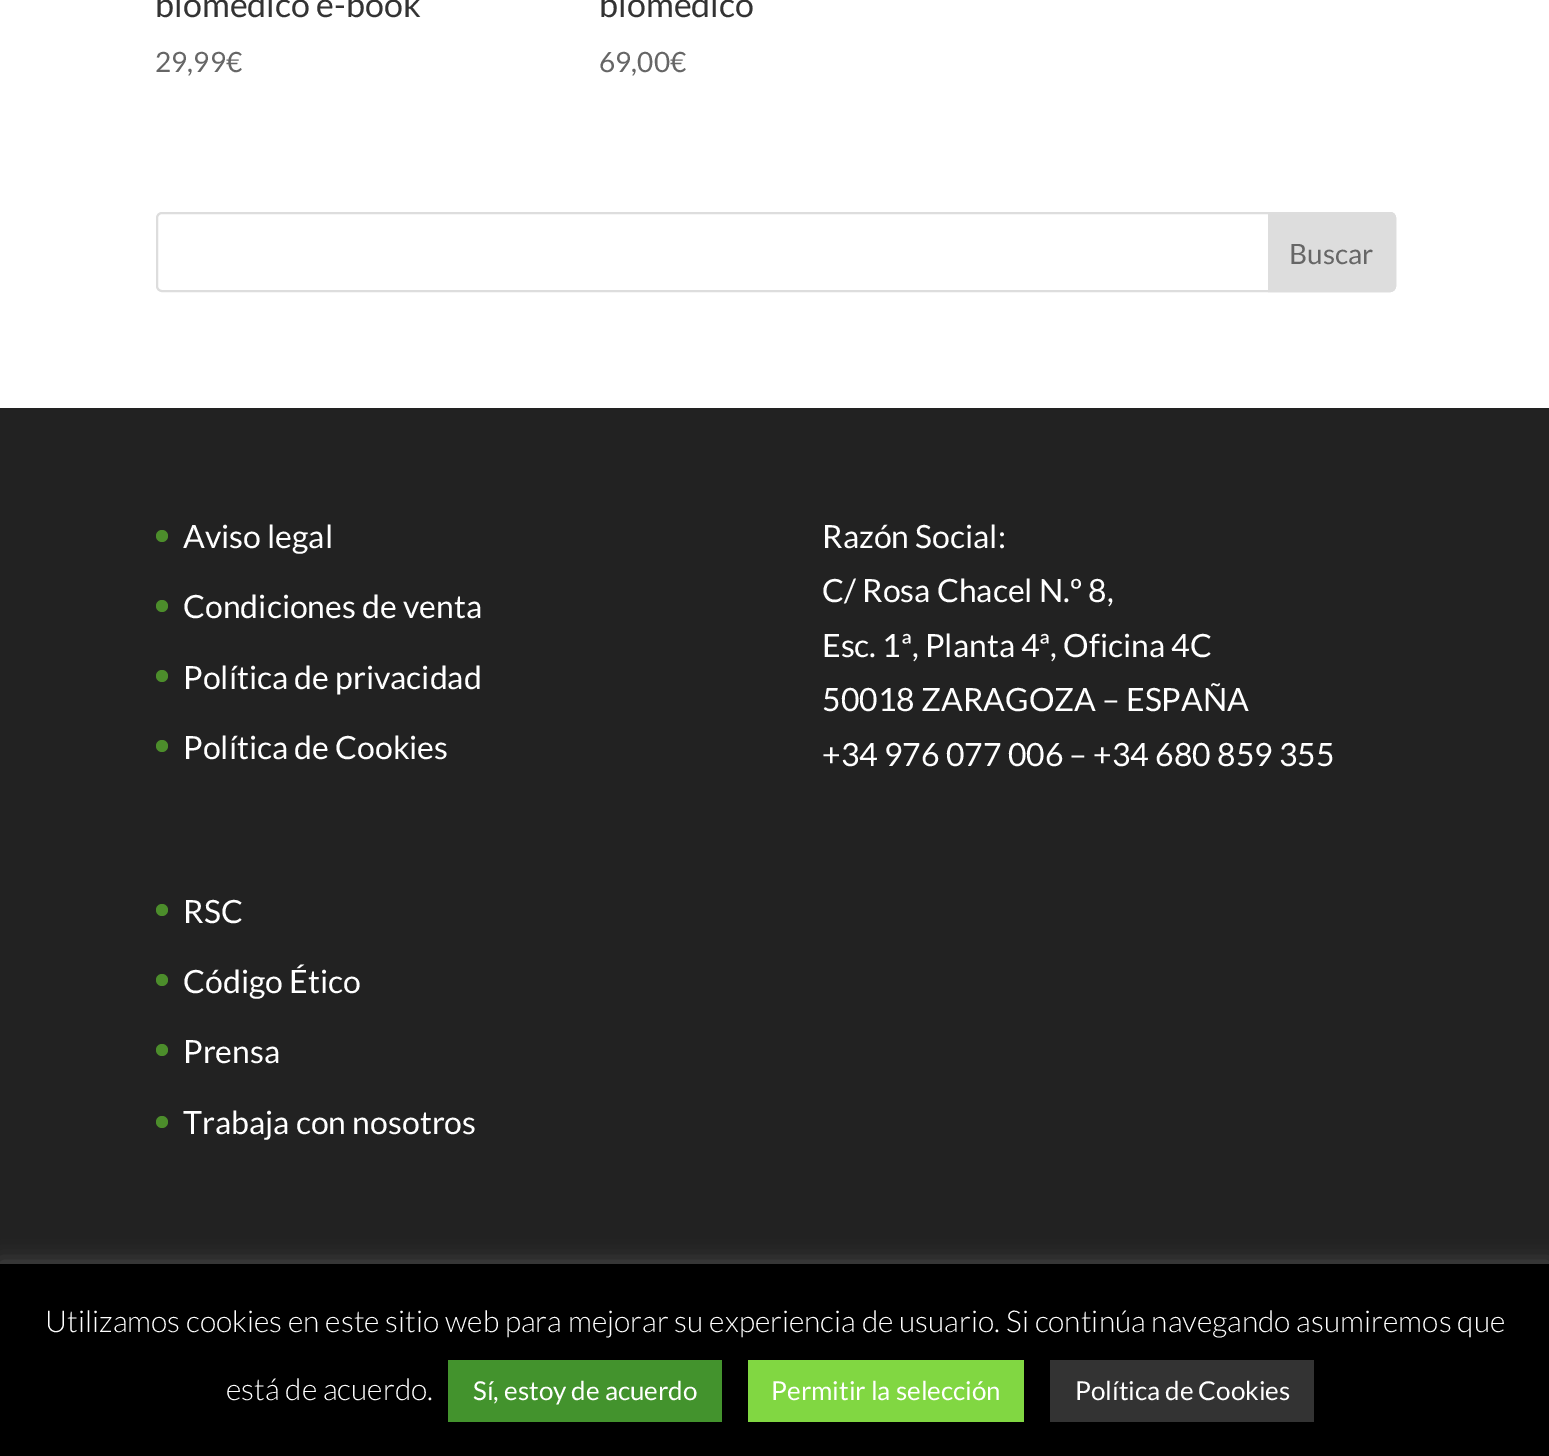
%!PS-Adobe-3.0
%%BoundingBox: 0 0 1549 1456
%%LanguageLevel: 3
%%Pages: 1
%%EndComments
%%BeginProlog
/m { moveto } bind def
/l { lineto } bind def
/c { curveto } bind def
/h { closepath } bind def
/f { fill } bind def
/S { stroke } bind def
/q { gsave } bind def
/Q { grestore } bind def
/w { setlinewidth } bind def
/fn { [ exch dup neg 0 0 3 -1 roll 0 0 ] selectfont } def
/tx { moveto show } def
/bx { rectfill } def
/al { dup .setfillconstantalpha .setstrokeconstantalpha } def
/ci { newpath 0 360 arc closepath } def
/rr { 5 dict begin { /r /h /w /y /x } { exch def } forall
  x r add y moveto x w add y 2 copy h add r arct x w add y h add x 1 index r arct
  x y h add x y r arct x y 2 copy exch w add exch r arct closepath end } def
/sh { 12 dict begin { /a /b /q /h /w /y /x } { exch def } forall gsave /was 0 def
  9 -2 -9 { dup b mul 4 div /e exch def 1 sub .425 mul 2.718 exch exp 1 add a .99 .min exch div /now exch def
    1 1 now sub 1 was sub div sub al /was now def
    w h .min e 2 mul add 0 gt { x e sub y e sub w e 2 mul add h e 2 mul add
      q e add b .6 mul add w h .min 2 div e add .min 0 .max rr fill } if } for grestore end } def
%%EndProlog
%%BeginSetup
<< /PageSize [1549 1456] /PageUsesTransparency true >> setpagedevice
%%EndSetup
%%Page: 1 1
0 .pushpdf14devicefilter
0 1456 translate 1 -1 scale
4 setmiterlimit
1 setgray
0 0 1549 1456 bx
/Lato-Regular 34 fn
0.2 setgray
(biomédico e-book) 155 17 tx
/Lato-Regular 28 fn
0.4 setgray
(29,99€) 155 72 tx
/Lato-Regular 34 fn
0.2 setgray
(biomédico) 599 17 tx
/Lato-Regular 28 fn
0.4 setgray
(69,00€) 599 72 tx
0.867 setgray
2 w
157 213 1238 78 5 rr S
1269 213 m 1390 213 l 1393 213 1395 215 1395 218 c 1395 286 l 1395 289 1393 291 1390 291 c 1269 291 l h q f Q
S
0.4 setgray
(Buscar) 1289 264 tx
0.133 setgray
0 408 1549 856 bx
0.298 0.553 0.169 setrgbcolor
162 536 6 ci f
/Lato-Regular 32 fn
1 setgray
(Aviso legal) 183 548 tx
0.298 0.553 0.169 setrgbcolor
162 606 6 ci f
1 setgray
(Condiciones de venta) 183 618 tx
0.298 0.553 0.169 setrgbcolor
162 676 6 ci f
1 setgray
(Política de privacidad) 183 689 tx
0.298 0.553 0.169 setrgbcolor
162 746 6 ci f
1 setgray
(Política de Cookies) 183 759 tx
(Razón Social:) 822 548 tx
(C/ Rosa Chacel N.º 8,) 822 602 tx
(Esc. 1ª, Planta 4ª, Oficina 4C) 822 657 tx
(50018 ZARAGOZA – ESPAÑA) 822 711 tx
(+34 976 077 006 – +34 680 859 355) 822 766 tx
0.298 0.553 0.169 setrgbcolor
162 910 6 ci f
1 setgray
(RSC) 183 923 tx
0.298 0.553 0.169 setrgbcolor
162 980 6 ci f
1 setgray
(Código Ético) 183 993 tx
0.298 0.553 0.169 setrgbcolor
162 1050 6 ci f
1 setgray
(Prensa) 183 1063 tx
0.298 0.553 0.169 setrgbcolor
162 1122 6 ci f
1 setgray
(Trabaja con nosotros) 183 1134 tx
0.675 0.671 0.671 setrgbcolor
0 1262 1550 192 0 10 0.3 sh
0 setgray
0 1264 1549 192 bx
/Lato-Light 30 fn
1 setgray
(Utilizamos cookies en este sitio web para mejorar su experiencia de usuario. Si continúa navegando asumiremos que) 45 1332 tx
(está de acuerdo.) 226 1400 tx
0.263 0.576 0.176 setrgbcolor
448 1360 274 62 bx
/Lato-Regular 26 fn
1 setgray
(Sí, estoy de acuerdo) 473 1400 tx
0.506 0.843 0.259 setrgbcolor
748 1360 276 62 bx
1 setgray
(Permitir la selección) 771 1400 tx
0.2 setgray
1050 1360 264 62 bx
1 setgray
(Política de Cookies) 1075 1400 tx
.poppdf14devicefilter showpage
%%EOF
